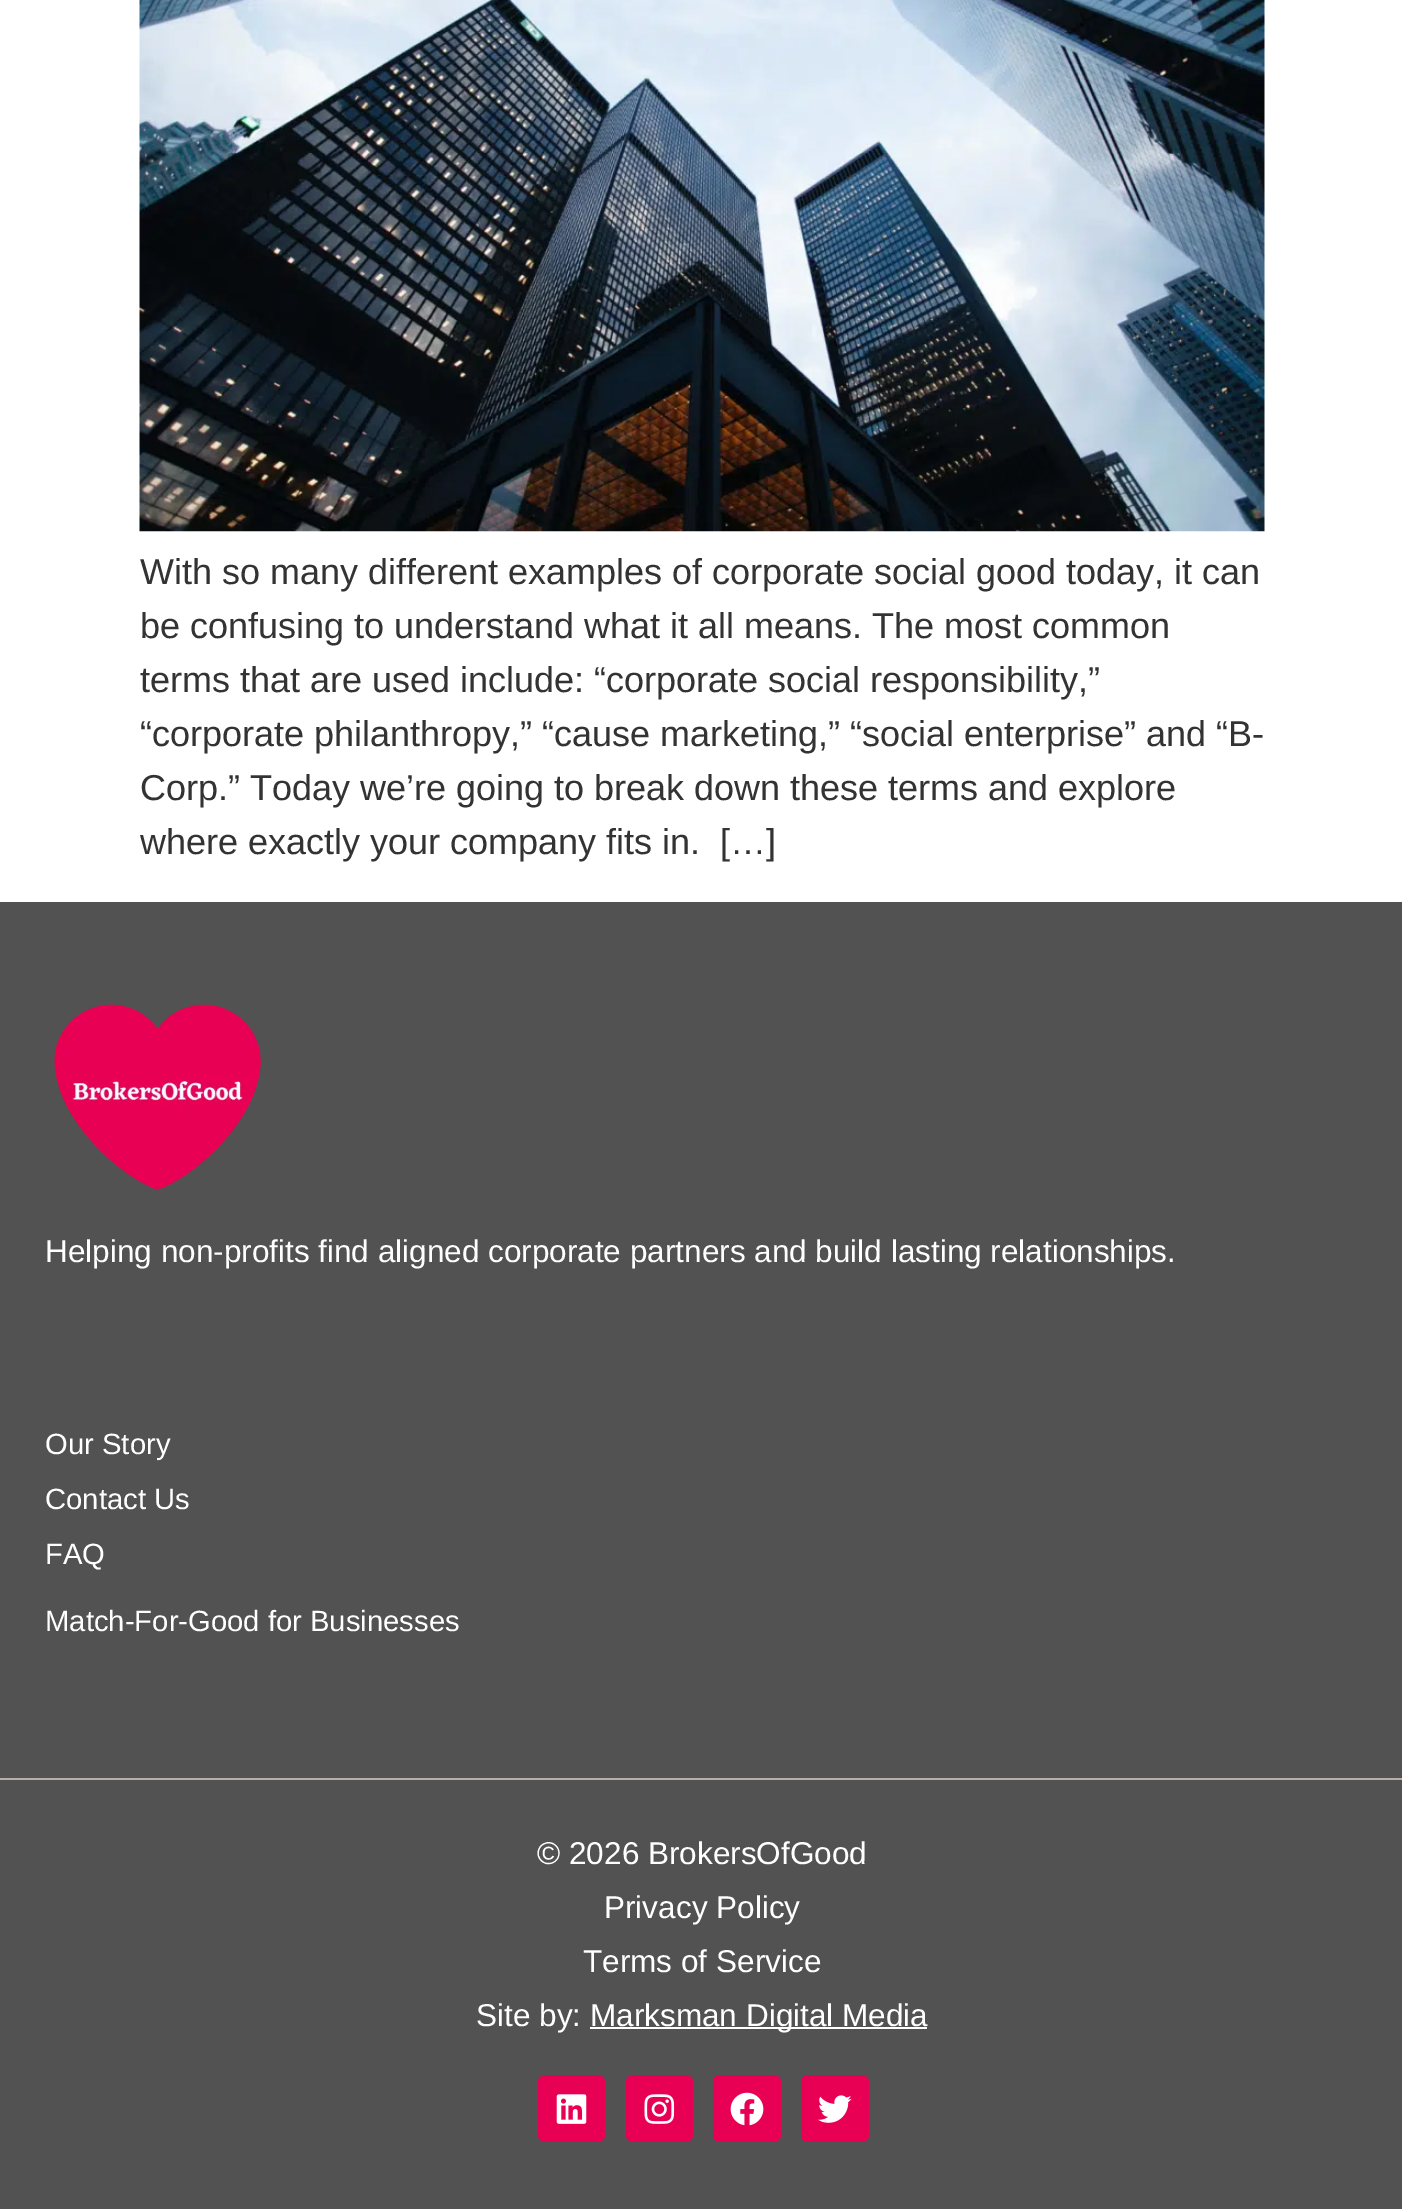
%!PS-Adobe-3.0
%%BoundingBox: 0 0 1402 2209
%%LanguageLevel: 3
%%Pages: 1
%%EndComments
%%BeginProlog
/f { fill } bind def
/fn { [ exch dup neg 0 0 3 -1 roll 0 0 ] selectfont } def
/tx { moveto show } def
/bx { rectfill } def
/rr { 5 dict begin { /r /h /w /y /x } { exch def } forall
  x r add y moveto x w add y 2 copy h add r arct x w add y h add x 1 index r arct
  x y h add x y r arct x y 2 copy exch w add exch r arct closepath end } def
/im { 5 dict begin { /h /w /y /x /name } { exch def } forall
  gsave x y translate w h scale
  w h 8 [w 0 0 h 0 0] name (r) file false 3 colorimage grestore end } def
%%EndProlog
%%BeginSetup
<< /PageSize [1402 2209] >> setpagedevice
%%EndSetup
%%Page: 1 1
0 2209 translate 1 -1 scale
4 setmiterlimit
1 setgray
0 0 1402 2209 bx
(image0.raw) 139 0 1126 532 im
/LiberationSans-Regular 36 fn
0.2 setgray
(With so many different examples of corporate social good today, it can) 140 584 tx
(be confusing to understand what it all means. The most common) 140 638 tx
(terms that are used include: “corporate social responsibility,”) 140 692 tx
(“corporate philanthropy,” “cause marketing,” “social enterprise” and “B-) 140 746 tx
(Corp.” Today we’re going to break down these terms and explore) 140 800 tx
(where exactly your company fits in.  […]) 140 854 tx
0.322 setgray
0 902 1402 876 bx
(image1.raw) 54 1004 207 187 im
/LiberationSans-Regular 31.5 fn
1 setgray
(Helping non-profits find aligned corporate partners and build lasting relationships.) 45 1262 tx
/LiberationSans-Regular 29.25 fn
(Our Story) 45 1454 tx
(Contact Us) 45 1509 tx
(FAQ) 45 1564 tx
(Match-For-Good for Businesses) 45 1631 tx
0.322 setgray
0 1780 1402 429 bx
0.718 0.686 0.655 setrgbcolor
0 1778 1402 2 bx
/LiberationSans-Regular 31.5 fn
1 setgray
(© 2026 BrokersOfGood) 537 1864 tx
(Privacy Policy) 604 1918 tx
(Terms of Service) 583 1972 tx
(Site by:) 476 2026 tx
590 2027 337 2 bx
(Marksman Digital Media) 590 2026 tx
0.91 0 0.333 setrgbcolor
538 2075 67 67 7 rr f
(image2.raw) 556 2094 31 30 im
626 2075 67 67 7 rr f
(image3.raw) 644 2094 31 30 im
713 2075 68 67 7 rr f
(image4.raw) 730 2092 34 34 im
801 2075 68 67 7 rr f
(image5.raw) 818 2095 34 28 im
showpage
%%EOF
